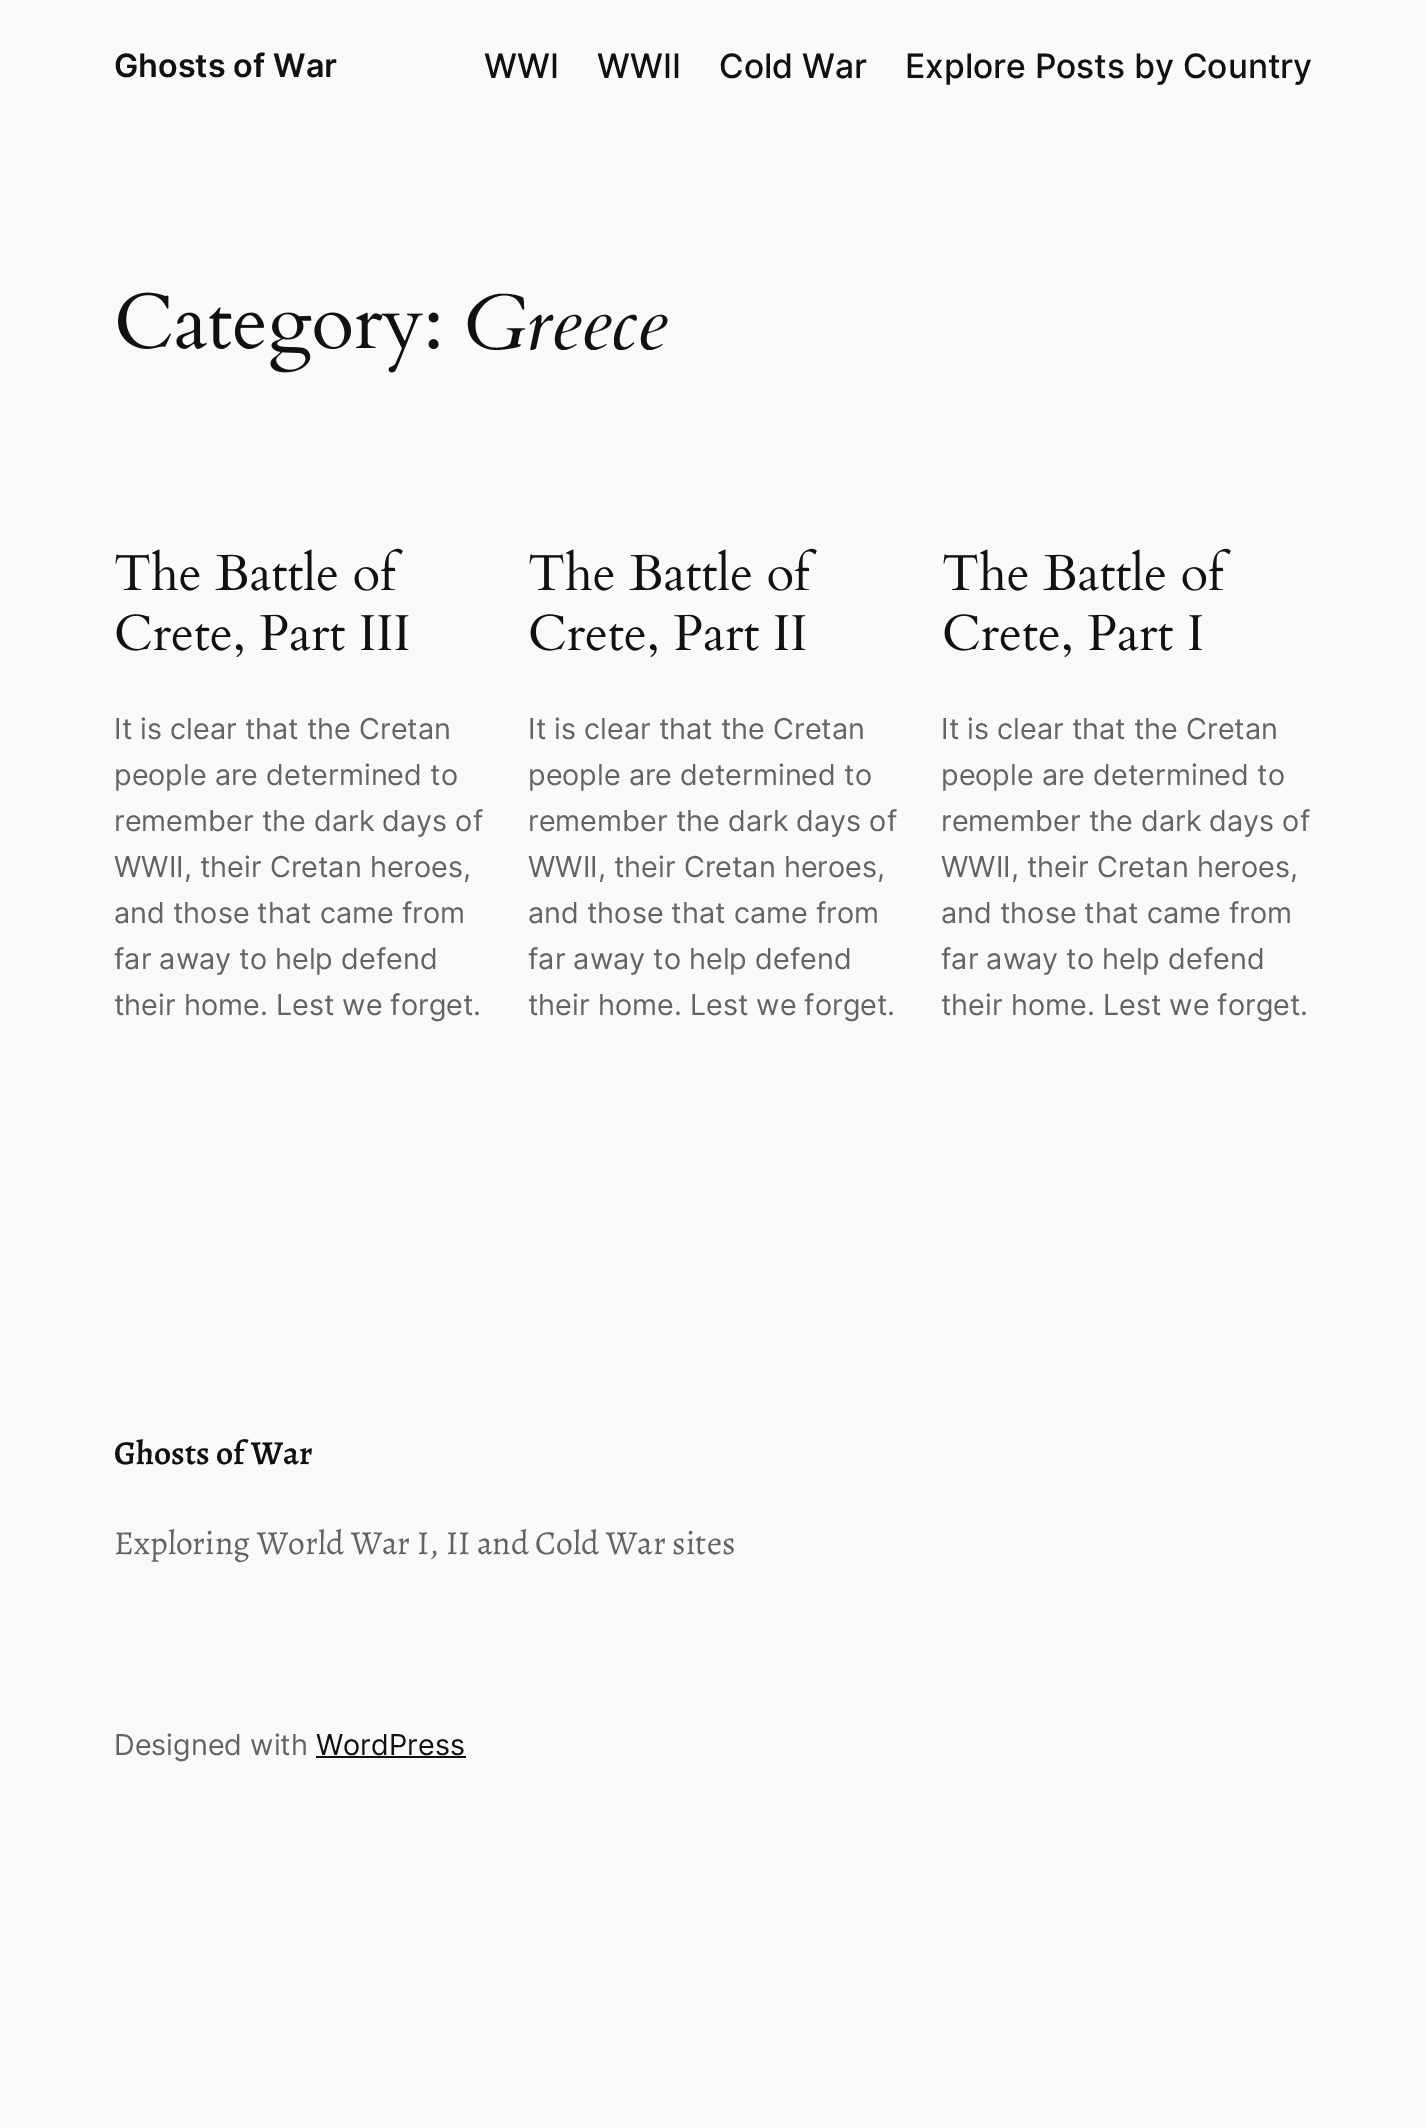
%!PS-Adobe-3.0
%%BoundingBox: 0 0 1425 2128
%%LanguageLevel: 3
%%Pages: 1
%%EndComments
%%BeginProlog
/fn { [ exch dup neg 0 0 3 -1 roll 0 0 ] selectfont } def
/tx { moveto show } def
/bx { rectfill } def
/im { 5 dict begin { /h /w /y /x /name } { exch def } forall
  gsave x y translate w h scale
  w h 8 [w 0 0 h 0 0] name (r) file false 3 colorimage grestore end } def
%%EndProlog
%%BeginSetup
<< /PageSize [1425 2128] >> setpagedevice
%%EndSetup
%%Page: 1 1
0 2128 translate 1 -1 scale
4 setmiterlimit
0.976 setgray
0 0 1425 2128 bx
/Inter-SemiBold 32.25 fn
0.067 setgray
(Ghosts of War) 114 77 tx
/Inter-Medium 33.6 fn
(WWI) 484 78 tx
(WWII) 597 78 tx
(Cold War) 719 78 tx
(Explore Posts by Country) 905 78 tx
(image0.raw) 118 292 321 81 im
/Cardo-Italic 78 fn
(Greece) 464 349 tx
(image1.raw) 115 548 288 43 im
(image2.raw) 116 614 293 43 im
/Inter-Regular 28.75 fn
0.388 setgray
(It is clear that the Cretan) 114 739 tx
(people are determined to) 114 785 tx
(remember the dark days of) 114 831 tx
(WWII, their Cretan heroes,) 114 877 tx
(and those that came from) 114 923 tx
(far away to help defend) 114 969 tx
(their home. Lest we forget.) 114 1015 tx
(image1.raw) 529 548 288 43 im
(image3.raw) 530 614 276 43 im
(It is clear that the Cretan) 528 739 tx
(people are determined to) 528 785 tx
(remember the dark days of) 528 831 tx
(WWII, their Cretan heroes,) 528 877 tx
(and those that came from) 528 923 tx
(far away to help defend) 528 969 tx
(their home. Lest we forget.) 528 1015 tx
(image1.raw) 943 548 288 43 im
(image4.raw) 944 614 258 43 im
(It is clear that the Cretan) 941 739 tx
(people are determined to) 941 785 tx
(remember the dark days of) 941 831 tx
(WWII, their Cretan heroes,) 941 877 tx
(and those that came from) 941 923 tx
(far away to help defend) 941 969 tx
(their home. Lest we forget.) 941 1015 tx
/Alegreya-SemiBold 33.6 fn
0.067 setgray
(Ghosts of War) 114 1464 tx
/Alegreya-Regular 33.6 fn
0.388 setgray
(Exploring World War I, II and Cold War sites) 114 1554 tx
/Inter-Regular 28.75 fn
(Designed with) 114 1755 tx
0.067 setgray
(WordPress) 316 1755 tx
316 1756 150 2 bx
showpage
%%EOF
